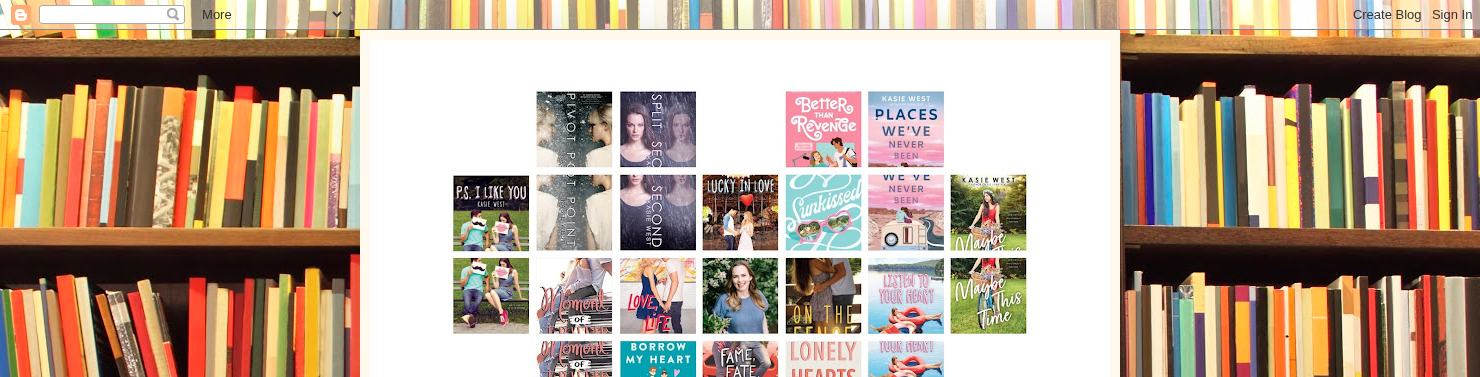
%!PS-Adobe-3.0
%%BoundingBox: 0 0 1480 377
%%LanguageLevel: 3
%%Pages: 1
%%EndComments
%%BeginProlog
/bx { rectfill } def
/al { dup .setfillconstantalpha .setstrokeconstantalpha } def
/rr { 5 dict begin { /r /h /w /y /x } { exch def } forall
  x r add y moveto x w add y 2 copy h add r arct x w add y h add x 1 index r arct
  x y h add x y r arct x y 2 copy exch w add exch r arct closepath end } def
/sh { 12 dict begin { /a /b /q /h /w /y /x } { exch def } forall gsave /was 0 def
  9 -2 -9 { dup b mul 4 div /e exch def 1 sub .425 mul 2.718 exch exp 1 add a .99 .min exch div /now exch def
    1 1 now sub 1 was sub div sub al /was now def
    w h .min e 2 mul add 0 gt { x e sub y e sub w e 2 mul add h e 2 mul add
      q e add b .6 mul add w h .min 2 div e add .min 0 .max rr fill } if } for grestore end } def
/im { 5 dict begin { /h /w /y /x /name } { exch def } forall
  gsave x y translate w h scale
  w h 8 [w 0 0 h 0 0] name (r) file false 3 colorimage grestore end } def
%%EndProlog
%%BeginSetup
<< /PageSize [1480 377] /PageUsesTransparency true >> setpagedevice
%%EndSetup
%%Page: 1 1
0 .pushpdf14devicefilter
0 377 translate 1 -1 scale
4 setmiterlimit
1 setgray
0 0 1480 377 bx
(image0.raw) 0 0 1480 377 im
0 setgray
360 30 760 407 0 20 0.15 sh
(image1.raw) 0 0 1480 30 im
1 0.976 0.933 setrgbcolor
360 30 760 347 bx
(image2.raw) 370 40 740 337 im
.poppdf14devicefilter showpage
%%EOF
